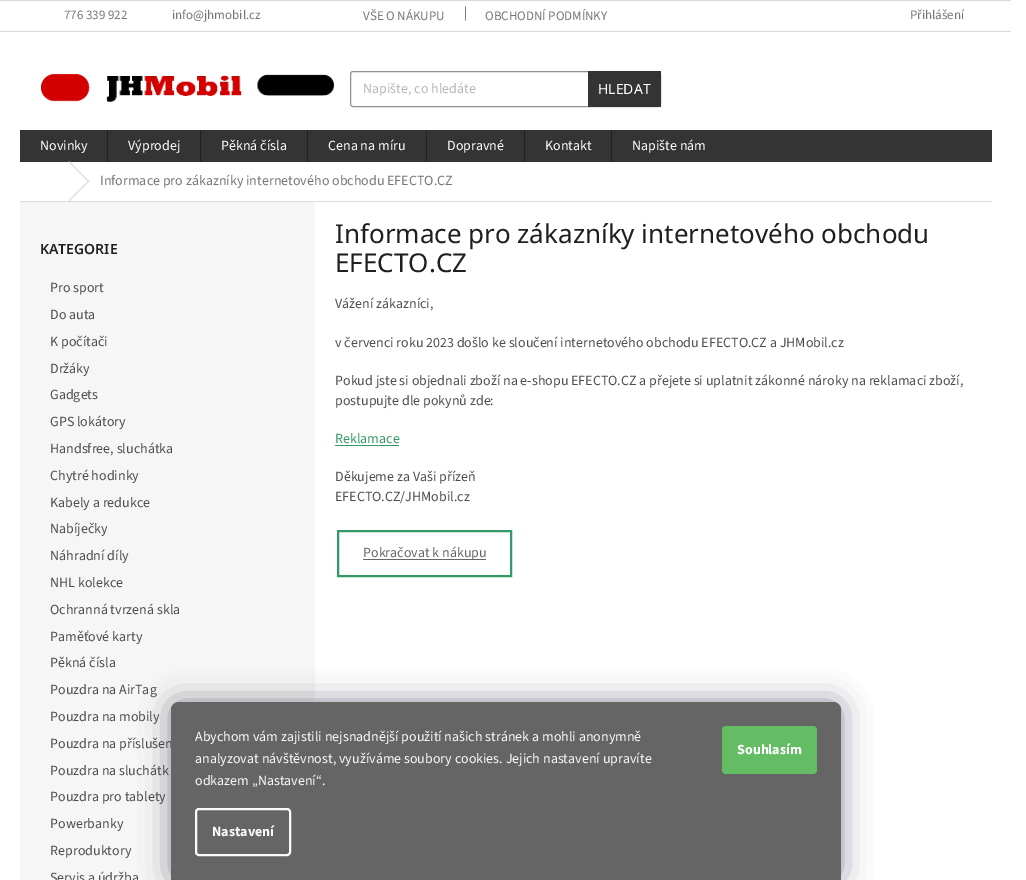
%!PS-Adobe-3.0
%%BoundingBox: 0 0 1026 880
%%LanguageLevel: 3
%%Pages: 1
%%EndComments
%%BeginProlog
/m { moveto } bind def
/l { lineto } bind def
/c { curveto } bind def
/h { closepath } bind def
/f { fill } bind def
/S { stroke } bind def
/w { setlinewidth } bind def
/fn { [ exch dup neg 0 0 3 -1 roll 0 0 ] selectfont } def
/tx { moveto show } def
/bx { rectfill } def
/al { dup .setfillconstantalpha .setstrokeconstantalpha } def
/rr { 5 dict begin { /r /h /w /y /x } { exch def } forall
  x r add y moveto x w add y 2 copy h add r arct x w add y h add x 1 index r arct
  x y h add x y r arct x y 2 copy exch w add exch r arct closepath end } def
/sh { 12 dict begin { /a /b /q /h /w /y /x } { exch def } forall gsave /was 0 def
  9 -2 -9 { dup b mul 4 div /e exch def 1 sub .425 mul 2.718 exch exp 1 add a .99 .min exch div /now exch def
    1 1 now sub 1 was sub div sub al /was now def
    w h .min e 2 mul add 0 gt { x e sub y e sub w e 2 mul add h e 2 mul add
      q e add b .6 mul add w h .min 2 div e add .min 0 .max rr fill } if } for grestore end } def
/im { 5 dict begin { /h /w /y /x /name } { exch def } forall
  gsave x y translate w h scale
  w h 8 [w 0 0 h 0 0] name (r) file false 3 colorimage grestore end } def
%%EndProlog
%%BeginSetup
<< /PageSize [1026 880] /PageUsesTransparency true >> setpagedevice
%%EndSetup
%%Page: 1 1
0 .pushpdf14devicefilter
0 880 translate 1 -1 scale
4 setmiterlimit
1 setgray
0 0 1026 880 bx
0.855 setgray
0 0 1011 1 bx
0 31 1011 1 bx
/SourceSans3-Regular 13 fn
0.463 setgray
(776 339 922) 64 19 tx
(info@jhmobil.cz) 172 19 tx
(VŠE O NÁKUPU) 363 20 tx
/SourceSans3-Regular 14 fn
0.302 setgray
(|) 464 17 tx
/SourceSans3-Regular 13 fn
0.463 setgray
(OBCHODNÍ PODMÍNKY) 485 20 tx
(Přihlášení) 910 19 tx
(image0.raw) 41 73 294 29 im
0.569 setgray
350.5 71.5 310 35 2.5 rr S
/SourceSans3-Regular 14 fn
0.714 setgray
(Napište, co hledáte) 363 93 tx
0.204 setgray
588 71 73 36 bx
/NotoSans-Regular 14 fn
1 setgray
(HLEDAT) 598 94 tx
0.204 setgray
20 130 972 32 bx
/SourceSans3-Regular 14 fn
1 setgray
(Novinky) 40 150 tx
0.129 setgray
107 130 1 32 bx
1 setgray
(Výprodej) 128 150 tx
0.129 setgray
200 130 1 32 bx
1 setgray
(Pěkná čísla) 221 150 tx
0.129 setgray
307 130 1 32 bx
1 setgray
(Cena na míru) 328 150 tx
0.129 setgray
426 130 1 32 bx
1 setgray
(Dopravné) 447 150 tx
0.129 setgray
524 130 1 32 bx
1 setgray
(Kontakt) 545 150 tx
0.129 setgray
611 130 1 32 bx
1 setgray
(Napište nám) 632 150 tx
0.855 setgray
20 201 972 1 bx
68.5 162 m 69.5 161.5 l 89.5 181.5 l 88.5 182 l h f
88.5 180.5 m 89.5 181 l 69.5 201 l 68.5 200.5 l h f
0.463 setgray
(Informace pro zákazníky internetového obchodu EFECTO.CZ) 100 185 tx
0.965 setgray
20 202 295 678 bx
/NotoSans-SemiBold 14 fn
0.122 setgray
(KATEGORIE) 40 254 tx
/SourceSans3-Regular 14 fn
0.302 setgray
(Pro sport) 50 292 tx
(Do auta) 50 319 tx
(K počítači) 50 346 tx
(Držáky) 50 373 tx
(Gadgets) 50 399 tx
(GPS lokátory) 50 426 tx
(Handsfree, sluchátka) 50 453 tx
(Chytré hodinky) 50 480 tx
(Kabely a redukce) 50 507 tx
(Nabíječky) 50 533 tx
(Náhradní díly) 50 560 tx
(NHL kolekce) 50 587 tx
(Ochranná tvrzená skla) 50 614 tx
(Paměťové karty) 50 641 tx
(Pěkná čísla) 50 667 tx
(Pouzdra na AirTag) 50 694 tx
(Pouzdra na mobily) 50 721 tx
(Pouzdra na příslušen) 50 748 tx
(Pouzdra na sluchátk) 50 775 tx
(Pouzdra pro tablety) 50 801 tx
(Powerbanky) 50 828 tx
(Reproduktory) 50 855 tx
(Servis a údržba) 50 882 tx
/NotoSans-Regular 26 fn
0.122 setgray
(Informace pro zákazníky internetového obchodu) 335 243 tx
(EFECTO.CZ) 335 272 tx
/SourceSans3-Regular 14 fn
0.302 setgray
(Vážení zákazníci,) 335 308 tx
(v červenci roku 2023 došlo ke sloučení internetového obchodu EFECTO.CZ a JHMobil.cz) 335 347 tx
(Pokud jste si objednali zboží na e-shopu EFECTO.CZ a přejete si uplatnit zákonné nároky na reklamaci zboží,) 335 385 tx
(postupujte dle pokynů zde:) 335 405 tx
0.2 0.6 0.4 setrgbcolor
(Reklamace) 335 443 tx
335 445 64 1 bx
0.302 setgray
(Děkujeme za Vaši přízeň) 335 481 tx
(EFECTO.CZ/JHMobil.cz) 335 501 tx
0.2 0.6 0.4 setrgbcolor
2 w
338 531 173 45 rectstroke
0.4 setgray
363 559 123 1 bx
(Pokračovat k nákupu) 363 557 tx
0.106 0.098 0.224 setrgbcolor
171 702 670 178 8 15 0.5 sh
0.396 setgray
179 702 m 833 702 l 837.5 702 841 705.5 841 710 c 841 880 l 171 880 l 171 710 l 171 705.5 174.5 702 179 702 c h f
0.973 0.98 0.984 setrgbcolor
(Abychom vám zajistili nejsnadnější použití našich stránek a mohli anonymně) 195 741 tx
(analyzovat návštěvnost, využíváme soubory cookies. Jejich nastavení upravíte) 195 763 tx
(odkazem „Nastavení“.) 195 785 tx
196 809 94 46 3 rr S
/SourceSans3-Bold 14 fn
(Nastavení) 212 836 tx
0.392 0.737 0.392 setrgbcolor
722 726 95 48 4 rr f
1 setgray
(Souhlasím) 737 754 tx
.poppdf14devicefilter showpage
%%EOF
